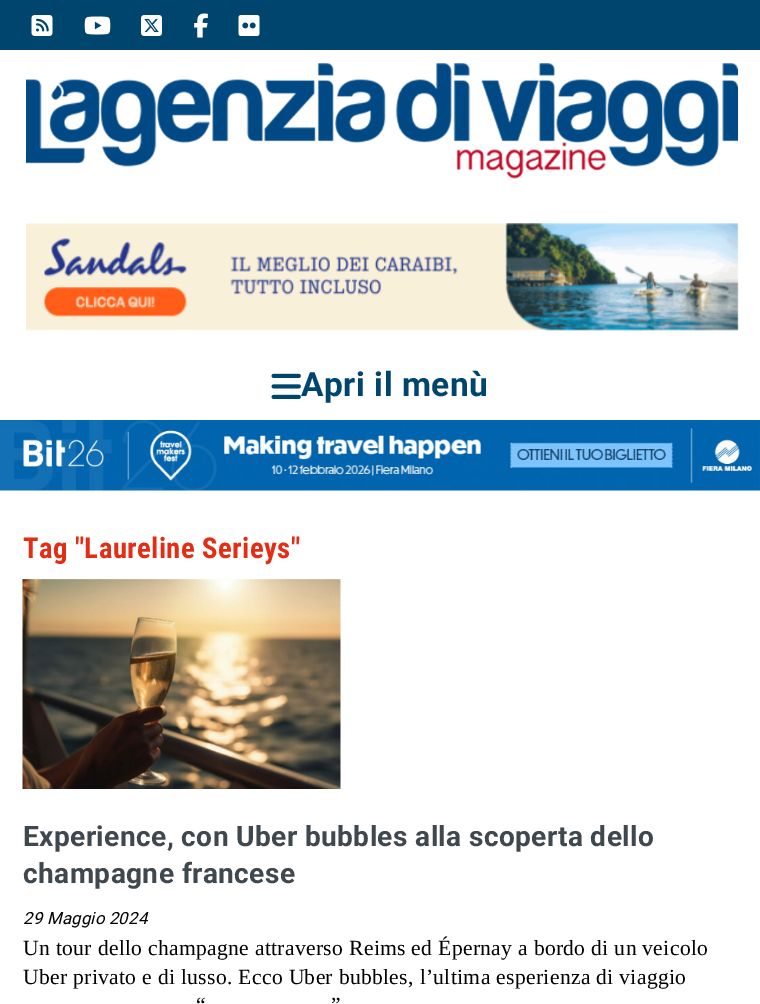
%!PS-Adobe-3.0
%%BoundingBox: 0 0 760 1004
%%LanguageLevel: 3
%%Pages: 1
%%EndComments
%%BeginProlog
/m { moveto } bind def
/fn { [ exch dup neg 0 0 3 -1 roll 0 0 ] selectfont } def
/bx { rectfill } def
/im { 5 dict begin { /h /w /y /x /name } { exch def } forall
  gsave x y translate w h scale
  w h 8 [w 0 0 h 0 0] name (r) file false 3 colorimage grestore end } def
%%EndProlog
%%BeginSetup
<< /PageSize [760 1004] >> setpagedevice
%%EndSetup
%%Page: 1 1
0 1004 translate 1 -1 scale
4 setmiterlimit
1 setgray
0 0 760 1004 bx
0 0.271 0.431 setrgbcolor
0 0 760 50 bx
(image0.raw) 31 15 22 21 im
(image1.raw) 84 16 27 19 im
(image2.raw) 141 15 21 21 im
(image3.raw) 194 13 14 25 im
(image4.raw) 238 15 22 21 im
(image5.raw) 26 63 713 116 im
(image6.raw) 26 223 713 108 im
(image7.raw) 271 373 30 26 im
/Roboto-Bold 33.5 fn
301 396 m 0.5 0 (Apri il menù) ashow
(image8.raw) 0 420 760 71 im
/RobotoCondensed-Bold 28.75 fn
0.89 0.18 0.082 setrgbcolor
23 558 m 0.4 0 (Tag "Laureline Serieys") ashow
(image9.raw) 22 579 319 210 im
/Roboto-Bold 28.1 fn
0.247 0.282 0.31 setrgbcolor
23 846 m 0.4 0 (Experience, con Uber bubbles alla scoperta dello) ashow
23 883 m 0.4 0 (champagne francese) ashow
/Roboto-Italic 16.75 fn
0 setgray
23 924 m 0.25 0 (29 Maggio 2024) ashow
/LiberationSerif-Regular 21.6 fn
23 955 m 0.32 0 (Un tour dello champagne attraverso Reims ed Épernay a bordo di un veicolo) ashow
23 984 m 0.32 0 (Uber privato e di lusso. Ecco Uber bubbles, l’ultima esperienza di viaggio) ashow
196 1012 m 0.32 0 (“) ashow
331 1012 m 0.32 0 (”) ashow
showpage
%%EOF
